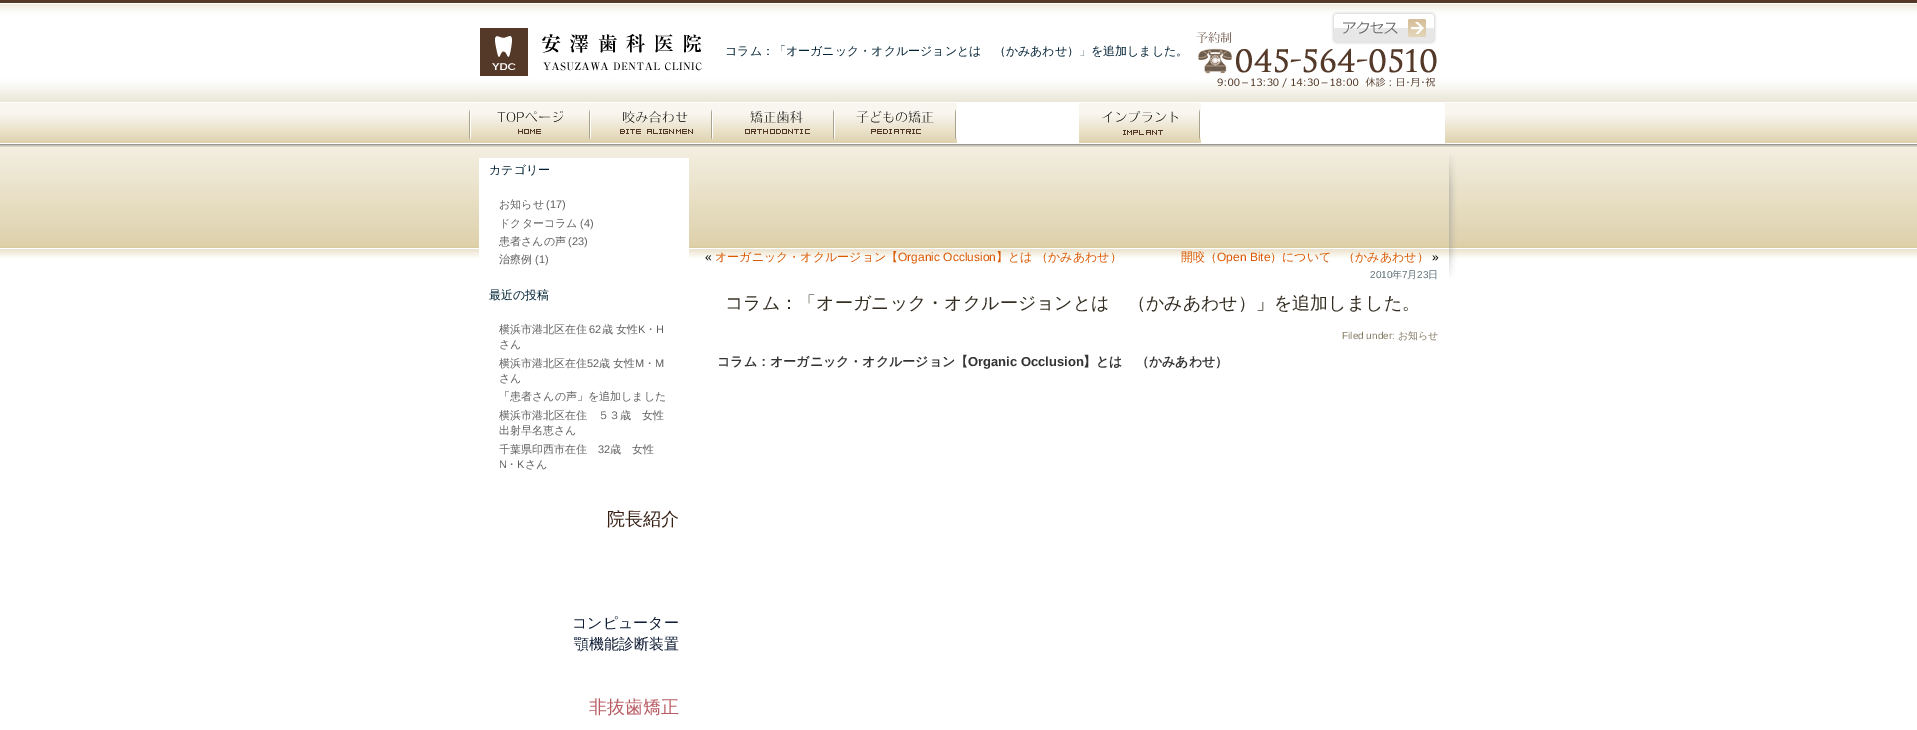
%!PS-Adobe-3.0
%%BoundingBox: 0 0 1917 730
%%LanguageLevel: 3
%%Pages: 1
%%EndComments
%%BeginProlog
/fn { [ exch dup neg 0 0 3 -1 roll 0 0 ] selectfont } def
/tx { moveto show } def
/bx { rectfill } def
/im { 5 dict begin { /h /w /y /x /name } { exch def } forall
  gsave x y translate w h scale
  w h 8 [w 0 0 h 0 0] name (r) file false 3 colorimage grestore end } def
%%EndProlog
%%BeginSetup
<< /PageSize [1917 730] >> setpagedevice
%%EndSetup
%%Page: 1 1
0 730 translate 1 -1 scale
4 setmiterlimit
1 setgray
0 0 1917 730 bx
(image0.raw) 0 0 1917 258 im
(image1.raw) 480 28 222 48 im
/WenQuanYiZenHei-Medium 12 fn
0 0.129 0.2 setrgbcolor
(コラム：「オーガニック・オクルージョンとは　（かみあわせ）」を追加しました。) 725 55 tx
(image2.raw) 1196 11 241 77 im
1 setgray
469 103 122 40 bx
(image3.raw) 469 103 122 40 im
591 103 854 40 bx
(image4.raw) 591 103 122 40 im
(image5.raw) 713 103 122 40 im
(image6.raw) 835 103 122 40 im
(image7.raw) 1079 103 122 40 im
479 158 210 100 bx
0 0.129 0.2 setrgbcolor
(カテゴリー) 489 174 tx
/WenQuanYiZenHei-Medium 11 fn
0.373 setgray
(お知らせ) 499 208 tx
/LiberationSans-Regular 11 fn
(\(17\)) 546 208 tx
/WenQuanYiZenHei-Medium 11 fn
(ドクターコラム) 499 227 tx
/LiberationSans-Regular 11 fn
(\(4\)) 580 227 tx
/WenQuanYiZenHei-Medium 11 fn
(患者さんの声) 499 245 tx
/LiberationSans-Regular 11 fn
(\(23\)) 568 245 tx
/WenQuanYiZenHei-Medium 11 fn
(治療例) 499 263 tx
/LiberationSans-Regular 11 fn
(\(1\)) 535 263 tx
/WenQuanYiZenHei-Medium 12 fn
0 0.129 0.2 setrgbcolor
(最近の投稿) 489 299 tx
/WenQuanYiZenHei-Medium 11 fn
0.373 setgray
(横浜市港北区在住) 499 333 tx
/LiberationSans-Regular 11 fn
(62) 589 333 tx
/WenQuanYiZenHei-Medium 11 fn
(歳 女性) 602 333 tx
/LiberationSans-Regular 11 fn
(K) 638 333 tx
/WenQuanYiZenHei-Medium 11 fn
(・) 645 333 tx
/LiberationSans-Regular 11 fn
(H) 656 333 tx
/WenQuanYiZenHei-Medium 11 fn
(さん) 499 348 tx
(横浜市港北区在住) 499 367 tx
/LiberationSans-Regular 11 fn
(52) 587 367 tx
/WenQuanYiZenHei-Medium 11 fn
(歳 女性) 599 367 tx
/LiberationSans-Regular 11 fn
(M) 635 367 tx
/WenQuanYiZenHei-Medium 11 fn
(・) 644 367 tx
/LiberationSans-Regular 11 fn
(M) 655 367 tx
/WenQuanYiZenHei-Medium 11 fn
(さん) 499 382 tx
(「患者さんの声」を追加しました) 499 400 tx
(横浜市港北区在住　５３歳　女性) 499 419 tx
(出射早名恵さん) 499 434 tx
(千葉県印西市在住) 499 453 tx
/LiberationSans-Regular 11 fn
(32) 598 453 tx
/WenQuanYiZenHei-Medium 11 fn
(歳　女性) 610 453 tx
/LiberationSans-Regular 11 fn
(N) 499 468 tx
/WenQuanYiZenHei-Medium 11 fn
(・) 506 468 tx
/LiberationSans-Regular 11 fn
(K) 517 468 tx
/WenQuanYiZenHei-Medium 11 fn
(さん) 525 468 tx
/WenQuanYiZenHei-Medium 18 fn
0.216 0.122 0.075 setrgbcolor
(院長紹介) 607 525 tx
/WenQuanYiZenHei-Medium 15 fn
0.055 0.11 0.208 setrgbcolor
(コンピューター) 572 628 tx
(顎機能診断装置) 574 649 tx
/WenQuanYiZenHei-Medium 18 fn
0.725 0.357 0.388 setrgbcolor
(非抜歯矯正) 589 713 tx
(image8.raw) 1449 153 8 125 im
/LiberationSans-Regular 12 fn
0 setgray
(«) 705 261 tx
/WenQuanYiZenHei-Medium 12 fn
0.859 0.341 0 setrgbcolor
(オーガニック・オクルージョン【) 715 261 tx
/LiberationSans-Regular 12 fn
(Organic Occlusion) 898 261 tx
/WenQuanYiZenHei-Medium 12 fn
(】とは （かみあわせ）) 996 261 tx
(開咬（) 1181 261 tx
/LiberationSans-Regular 12 fn
(Open Bite) 1217 261 tx
/WenQuanYiZenHei-Medium 12 fn
(）について　（かみあわせ）) 1270 261 tx
/LiberationSans-Regular 12 fn
0 setgray
(») 1432 261 tx
/LiberationSans-Regular 10 fn
0.373 0.439 0.478 setrgbcolor
(2010) 1370 278 tx
/WenQuanYiZenHei-Medium 10 fn
(年) 1392 278 tx
/LiberationSans-Regular 10 fn
(7) 1402 278 tx
/WenQuanYiZenHei-Medium 10 fn
(月) 1407 278 tx
/LiberationSans-Regular 10 fn
(23) 1417 278 tx
/WenQuanYiZenHei-Medium 10 fn
(日) 1428 278 tx
/WenQuanYiZenHei-Medium 18 fn
0.2 0.176 0.133 setrgbcolor
(コラム：「オーガニック・オクルージョンとは　（かみあわせ）」を追加しました。) 725 309 tx
/LiberationSans-Regular 10 fn
0.525 0.482 0.392 setrgbcolor
(Filed under:) 1342 339 tx
/WenQuanYiZenHei-Medium 10 fn
(お知らせ) 1398 339 tx
/WenQuanYiZenHei-Bold 13 fn
0.2 setgray
(コラム：オーガニック・オクルージョン【) 717 366 tx
/LiberationSans-Bold 13 fn
(Organic Occlusion) 968 366 tx
/WenQuanYiZenHei-Bold 13 fn
(】とは　（かみあわせ）) 1083 366 tx
showpage
%%EOF
